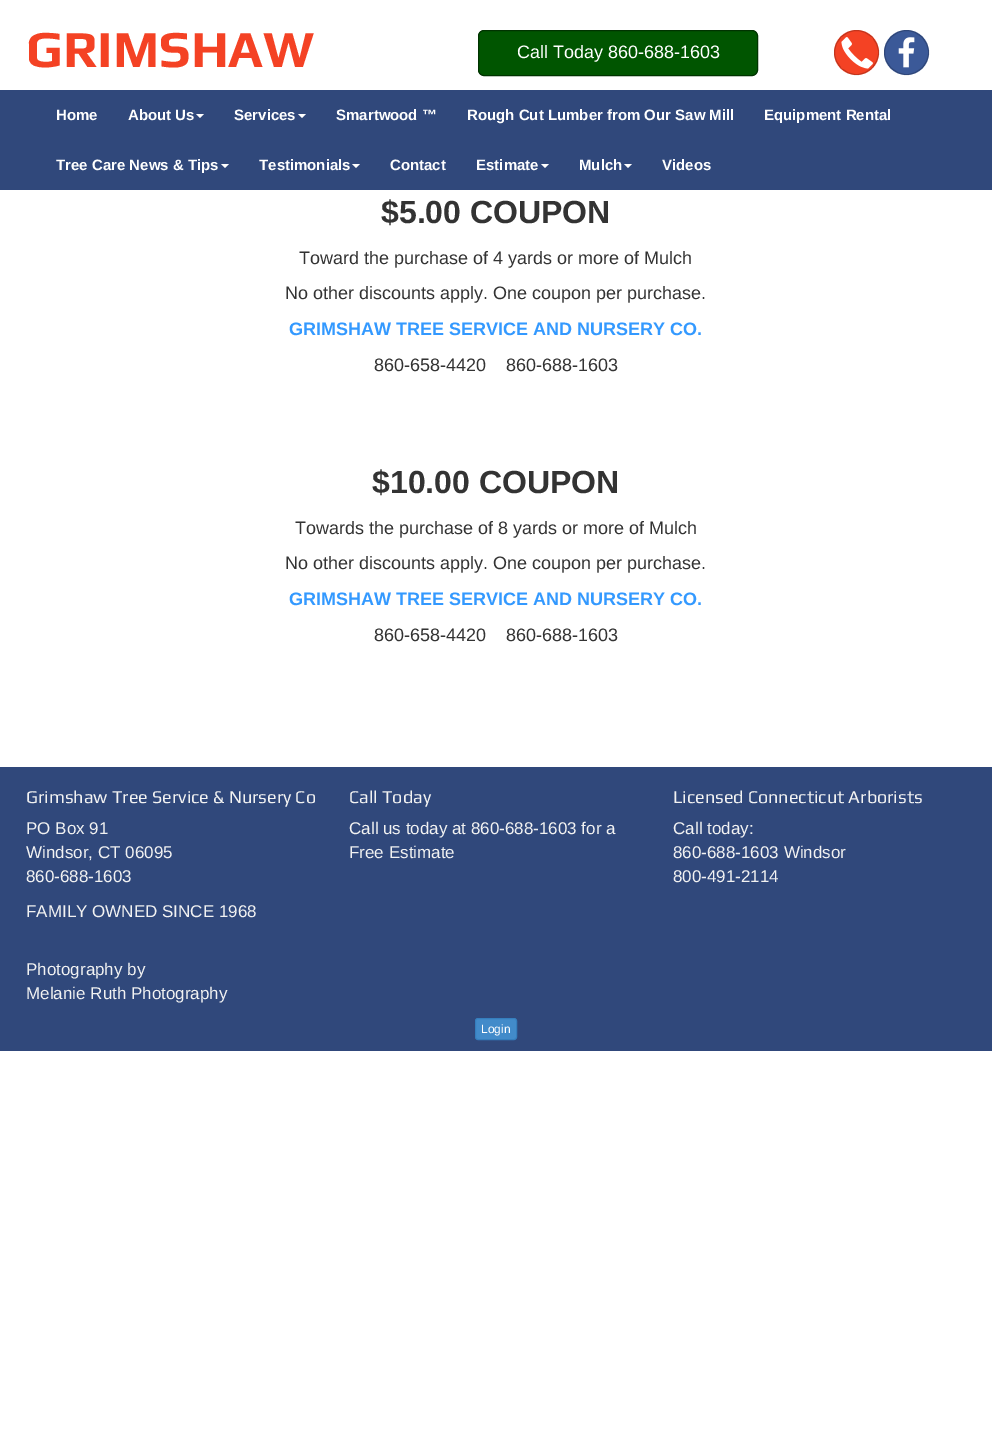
%!PS-Adobe-3.0
%%BoundingBox: 0 0 992 1430
%%LanguageLevel: 3
%%Pages: 1
%%EndComments
%%BeginProlog
/m { moveto } bind def
/l { lineto } bind def
/h { closepath } bind def
/f { fill } bind def
/S { stroke } bind def
/q { gsave } bind def
/Q { grestore } bind def
/fn { [ exch dup neg 0 0 3 -1 roll 0 0 ] selectfont } def
/tx { moveto show } def
/bx { rectfill } def
/al { dup .setfillconstantalpha .setstrokeconstantalpha } def
/ci { newpath 0 360 arc closepath } def
/rr { 5 dict begin { /r /h /w /y /x } { exch def } forall
  x r add y moveto x w add y 2 copy h add r arct x w add y h add x 1 index r arct
  x y h add x y r arct x y 2 copy exch w add exch r arct closepath end } def
/im { 5 dict begin { /h /w /y /x /name } { exch def } forall
  gsave x y translate w h scale
  w h 8 [w 0 0 h 0 0] name (r) file false 3 colorimage grestore end } def
%%EndProlog
%%BeginSetup
<< /PageSize [992 1430] /PageUsesTransparency true >> setpagedevice
%%EndSetup
%%Page: 1 1
0 .pushpdf14devicefilter
0 1430 translate 1 -1 scale
4 setmiterlimit
1 setgray
0 0 992 1430 bx
/Play-Bold 52 fn
0.957 0.259 0.141 setrgbcolor
(GRIMSHAW) 26 67 tx
0 0.333 0 setrgbcolor
478.5 30.5 279 45 5.5 rr q f Q
0 0.2 0 setrgbcolor
S
/LiberationSans-Regular 18 fn
1 setgray
(Call Today 860-688-1603) 517 58 tx
0.957 0.259 0.141 setrgbcolor
856.5 52.5 22.5 ci f
0.2 al
0 setgray
856.5 52.5 22 ci S
1 al
(image0.raw) 841 37 32 32 im
0.231 0.349 0.596 setrgbcolor
906.5 52.5 22.5 ci f
0.2 al
0 setgray
906.5 52.5 22 ci S
1 al
(image1.raw) 898 37 17 31 im
0.188 0.282 0.482 setrgbcolor
0 90 992 100 bx
/LiberationSans-Bold 15 fn
1 setgray
(Home) 56 120 tx
(About Us) 128 120 tx
196 114 m 204 114 l 200 118 l h f
(Services) 234 120 tx
298 114 m 306 114 l 302 118 l h f
(Smartwood ™) 336 120 tx
(Rough Cut Lumber from Our Saw Mill) 467 120 tx
(Equipment Rental) 764 120 tx
(Tree Care News & Tips) 56 170 tx
221 164 m 229 164 l 225 168 l h f
(Testimonials) 259 170 tx
352 164 m 360 164 l 356 168 l h f
(Contact) 390 170 tx
(Estimate) 476 170 tx
541 164 m 549 164 l 545 168 l h f
(Mulch) 579 170 tx
624 164 m 632 164 l 628 168 l h f
(Videos) 662 170 tx
/LiberationSans-Bold 32 fn
0.2 setgray
($5.00 COUPON) 381 223 tx
/LiberationSans-Regular 18 fn
(Toward the purchase of 4 yards or more of Mulch) 299 264 tx
(No other discounts apply. One coupon per purchase.) 285 299 tx
/LiberationSans-Bold 18 fn
0.2 0.6 1 setrgbcolor
(GRIMSHAW TREE SERVICE AND NURSERY CO.) 289 335 tx
/LiberationSans-Regular 18 fn
0.2 setgray
(860-658-4420    860-688-1603) 374 371 tx
/LiberationSans-Bold 32 fn
($10.00 COUPON) 372 493 tx
/LiberationSans-Regular 18 fn
(Towards the purchase of 8 yards or more of Mulch) 295 534 tx
(No other discounts apply. One coupon per purchase.) 285 569 tx
/LiberationSans-Bold 18 fn
0.2 0.6 1 setrgbcolor
(GRIMSHAW TREE SERVICE AND NURSERY CO.) 289 605 tx
/LiberationSans-Regular 18 fn
0.2 setgray
(860-658-4420    860-688-1603) 374 641 tx
0.188 0.282 0.482 setrgbcolor
0 767 992 284 bx
/Play-Regular 18 fn
0.949 setgray
(Grimshaw Tree Service & Nursery Co) 26 803 tx
/LiberationSans-Regular 17 fn
(PO Box 91) 26 834 tx
(Windsor, CT 06095) 26 858 tx
(860-688-1603) 26 882 tx
(FAMILY OWNED SINCE 1968) 26 917 tx
(Photography by) 26 975 tx
(Melanie Ruth Photography) 26 999 tx
/Play-Regular 18 fn
(Call Today) 349 803 tx
/LiberationSans-Regular 17 fn
(Call us today at 860-688-1603 for a) 349 834 tx
(Free Estimate) 349 858 tx
/Play-Regular 18 fn
(Licensed Connecticut Arborists) 673 803 tx
/LiberationSans-Regular 17 fn
(Call today:) 673 834 tx
(860-688-1603 Windsor) 673 858 tx
(800-491-2114) 673 882 tx
0.259 0.545 0.792 setrgbcolor
475.5 1018.5 41 21 2.5 rr q f Q
0.208 0.494 0.741 setrgbcolor
S
/LiberationSans-Regular 12 fn
1 setgray
(Login) 481 1033 tx
.poppdf14devicefilter showpage
%%EOF
